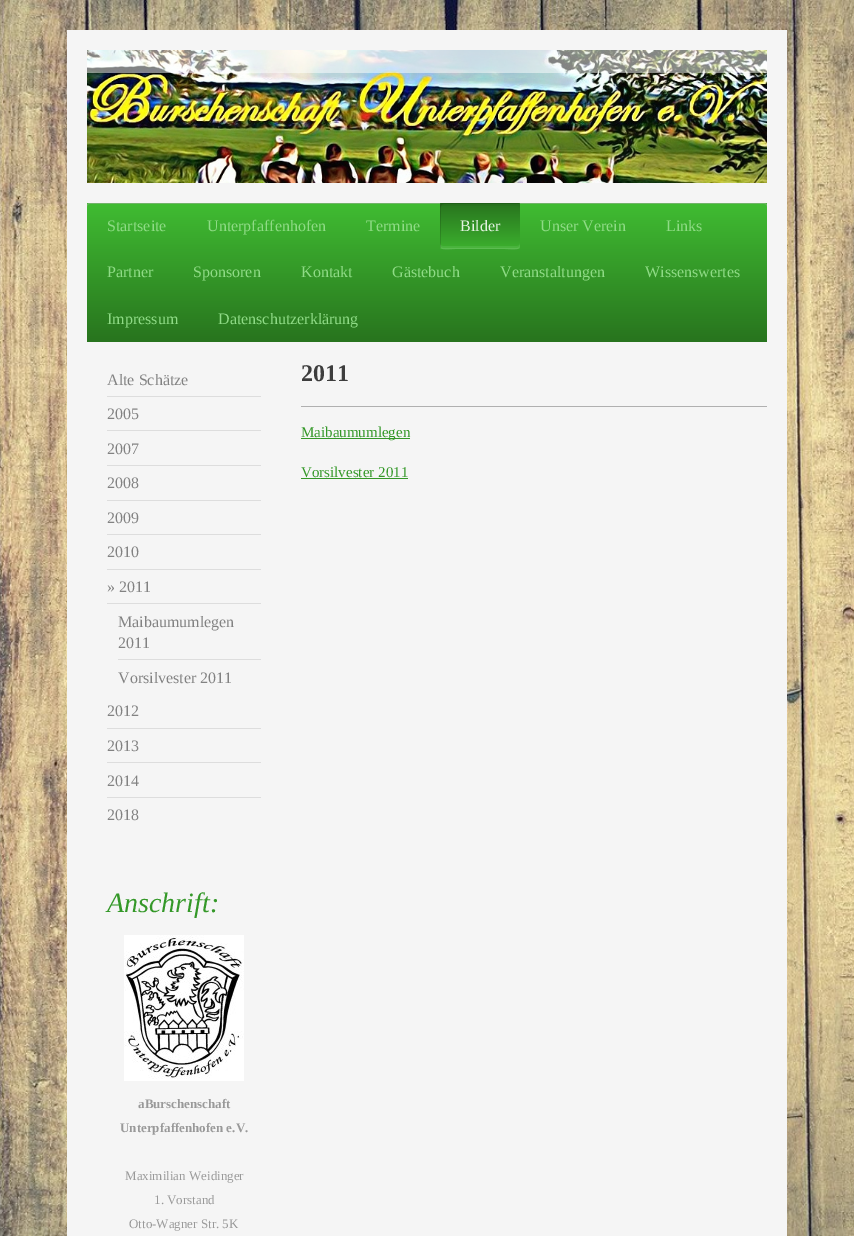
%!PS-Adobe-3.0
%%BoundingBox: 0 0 854 1236
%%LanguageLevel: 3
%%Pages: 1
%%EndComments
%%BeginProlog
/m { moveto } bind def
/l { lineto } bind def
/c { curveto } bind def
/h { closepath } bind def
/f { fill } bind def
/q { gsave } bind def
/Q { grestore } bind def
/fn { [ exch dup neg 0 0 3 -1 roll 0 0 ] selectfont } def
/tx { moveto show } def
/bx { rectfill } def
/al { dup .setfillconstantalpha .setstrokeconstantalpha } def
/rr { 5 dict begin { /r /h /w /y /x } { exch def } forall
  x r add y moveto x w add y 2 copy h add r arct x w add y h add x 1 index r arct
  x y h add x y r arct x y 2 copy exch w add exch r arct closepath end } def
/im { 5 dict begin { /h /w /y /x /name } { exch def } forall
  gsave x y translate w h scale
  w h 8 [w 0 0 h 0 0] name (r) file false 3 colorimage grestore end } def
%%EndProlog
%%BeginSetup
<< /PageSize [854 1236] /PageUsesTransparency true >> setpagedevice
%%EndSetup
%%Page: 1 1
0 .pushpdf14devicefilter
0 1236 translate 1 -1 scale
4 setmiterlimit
1 setgray
0 0 854 1236 bx
(image0.raw) 0 0 854 1236 im
0.961 setgray
67 30 720 1206 bx
(image1.raw) 87 50 680 133 im
0.5 al
1 setgray
87 50 680 23 bx
1 al
q 87 203 680 139 3 rr clip newpath
<< /ShadingType 2 /ColorSpace /DeviceRGB /Coords [87 203 87 342] /Extend [true true] /Function << /FunctionType 2 /Domain [0 1] /C0 [0.251 0.737 0.196] /C1 [0.157 0.455 0.118] /N 1 >> >> shfill Q
0.2 0.58 0.153 setrgbcolor
90 204 m 764 204 l 766 204 767 205 767 207 c 767 206 l 767 204 766 203 764 203 c 90 203 l 88 203 87 204 87 206 c 87 207 l 87 205 88 204 90 204 c h f
0.3 al
1 setgray
90 204 m 764 204 l 766 204 767 205 767 207 c 767 206 l 767 204 766 203 764 203 c 90 203 l 88 203 87 204 87 206 c 87 207 l 87 205 88 204 90 204 c h f
/LiberationSerif-Regular 16 fn
1 al
0.561 0.859 0.525 setrgbcolor
(Startseite) 107 231 tx
(Unterpfaffenhofen) 207 231 tx
(Termine) 366 231 tx
q 440 203 80 46 3 rr clip newpath
<< /ShadingType 2 /ColorSpace /DeviceRGB /Coords [440 249 440 203] /Extend [true true] /Function << /FunctionType 2 /Domain [0 1] /C0 [0.235 0.69 0.18] /C1 [0.157 0.455 0.118] /N 1 >> >> shfill Q
0.15 al
0 setgray
444 204 m 519 204 l 519 203 518 203 517 203 c 443 203 l 441 203 440 204 440 206 c 440 246 l 440 247 440 248 441 248 c 441 214 l 441 211 439 204 444 204 c h f
0.04 al
443 206 m 517 206 l 519 206 520 207 520 209 c 520 206 l 520 204 519 203 517 203 c 443 203 l 441 203 440 204 440 206 c 440 209 l 440 207 441 206 443 206 c h f
0.08 al
1 setgray
440 243 m 440 246 l 440 248 441 249 443 249 c 517 249 l 519 249 520 248 520 246 c 520 243 l 520 245 519 246 517 246 c 443 246 l 441 246 440 245 440 243 c h f
0.1 al
440 245 m 440 252 451 249 455 249 c 505 249 l 509 249 520 252 520 245 c 520 247 519 248 517 248 c 443 248 l 441 248 440 247 440 245 c h f
1 al
0.89 0.949 0.882 setrgbcolor
(Bilder) 460 231 tx
0.561 0.859 0.525 setrgbcolor
(Unser Verein) 540 231 tx
(Links) 666 231 tx
(Partner) 107 277 tx
(Sponsoren) 193 277 tx
(Kontakt) 301 277 tx
(Gästebuch) 392 277 tx
(Veranstaltungen) 500 277 tx
(Wissenswertes) 645 277 tx
(Impressum) 107 324 tx
(Datenschutzerklärung) 218 324 tx
0.867 setgray
107 396 154 1 bx
0.51 setgray
(Alte Schätze) 107 385 tx
0.867 setgray
107 430 154 1 bx
0.51 setgray
(2005) 107 419 tx
0.867 setgray
107 465 154 1 bx
0.51 setgray
(2007) 107 454 tx
0.867 setgray
107 500 154 1 bx
0.51 setgray
(2008) 107 488 tx
0.867 setgray
107 534 154 1 bx
0.51 setgray
(2009) 107 523 tx
0.867 setgray
107 569 154 1 bx
0.51 setgray
(2010) 107 557 tx
0.867 setgray
107 603 154 1 bx
0.51 setgray
(» 2011) 107 592 tx
0.867 setgray
118 659 143 1 bx
0.51 setgray
(Maibaumumlegen) 118 627 tx
(2011) 118 648 tx
(Vorsilvester 2011) 118 683 tx
0.867 setgray
107 728 154 1 bx
0.51 setgray
(2012) 107 716 tx
0.867 setgray
107 762 154 1 bx
0.51 setgray
(2013) 107 751 tx
0.867 setgray
107 797 154 1 bx
0.51 setgray
(2014) 107 786 tx
(2018) 107 820 tx
/LiberationSerif-Italic 28 fn
0.204 0.596 0.157 setrgbcolor
(Anschrift:) 107 912 tx
(image2.raw) 124 935 120 146 im
/LiberationSerif-Bold 13 fn
0.6 setgray
(aBurschenschaft) 138 1108 tx
(Unterpfaffenhofen e.V.) 120 1132 tx
/LiberationSerif-Regular 13 fn
(Maximilian Weidinger) 125 1180 tx
(1. Vorstand) 154 1204 tx
(Otto-Wagner Str. 5K) 129 1228 tx
/LiberationSerif-Bold 24 fn
0.239 setgray
(2011) 301 381 tx
0.69 setgray
301 406 466 1 bx
0.204 0.596 0.157 setrgbcolor
301 438 109 1 bx
/LiberationSerif-Regular 15 fn
(Maibaumumlegen) 301 437 tx
(Vorsilvester 2011) 301 477 tx
301 478 107 1 bx
.poppdf14devicefilter showpage
%%EOF
